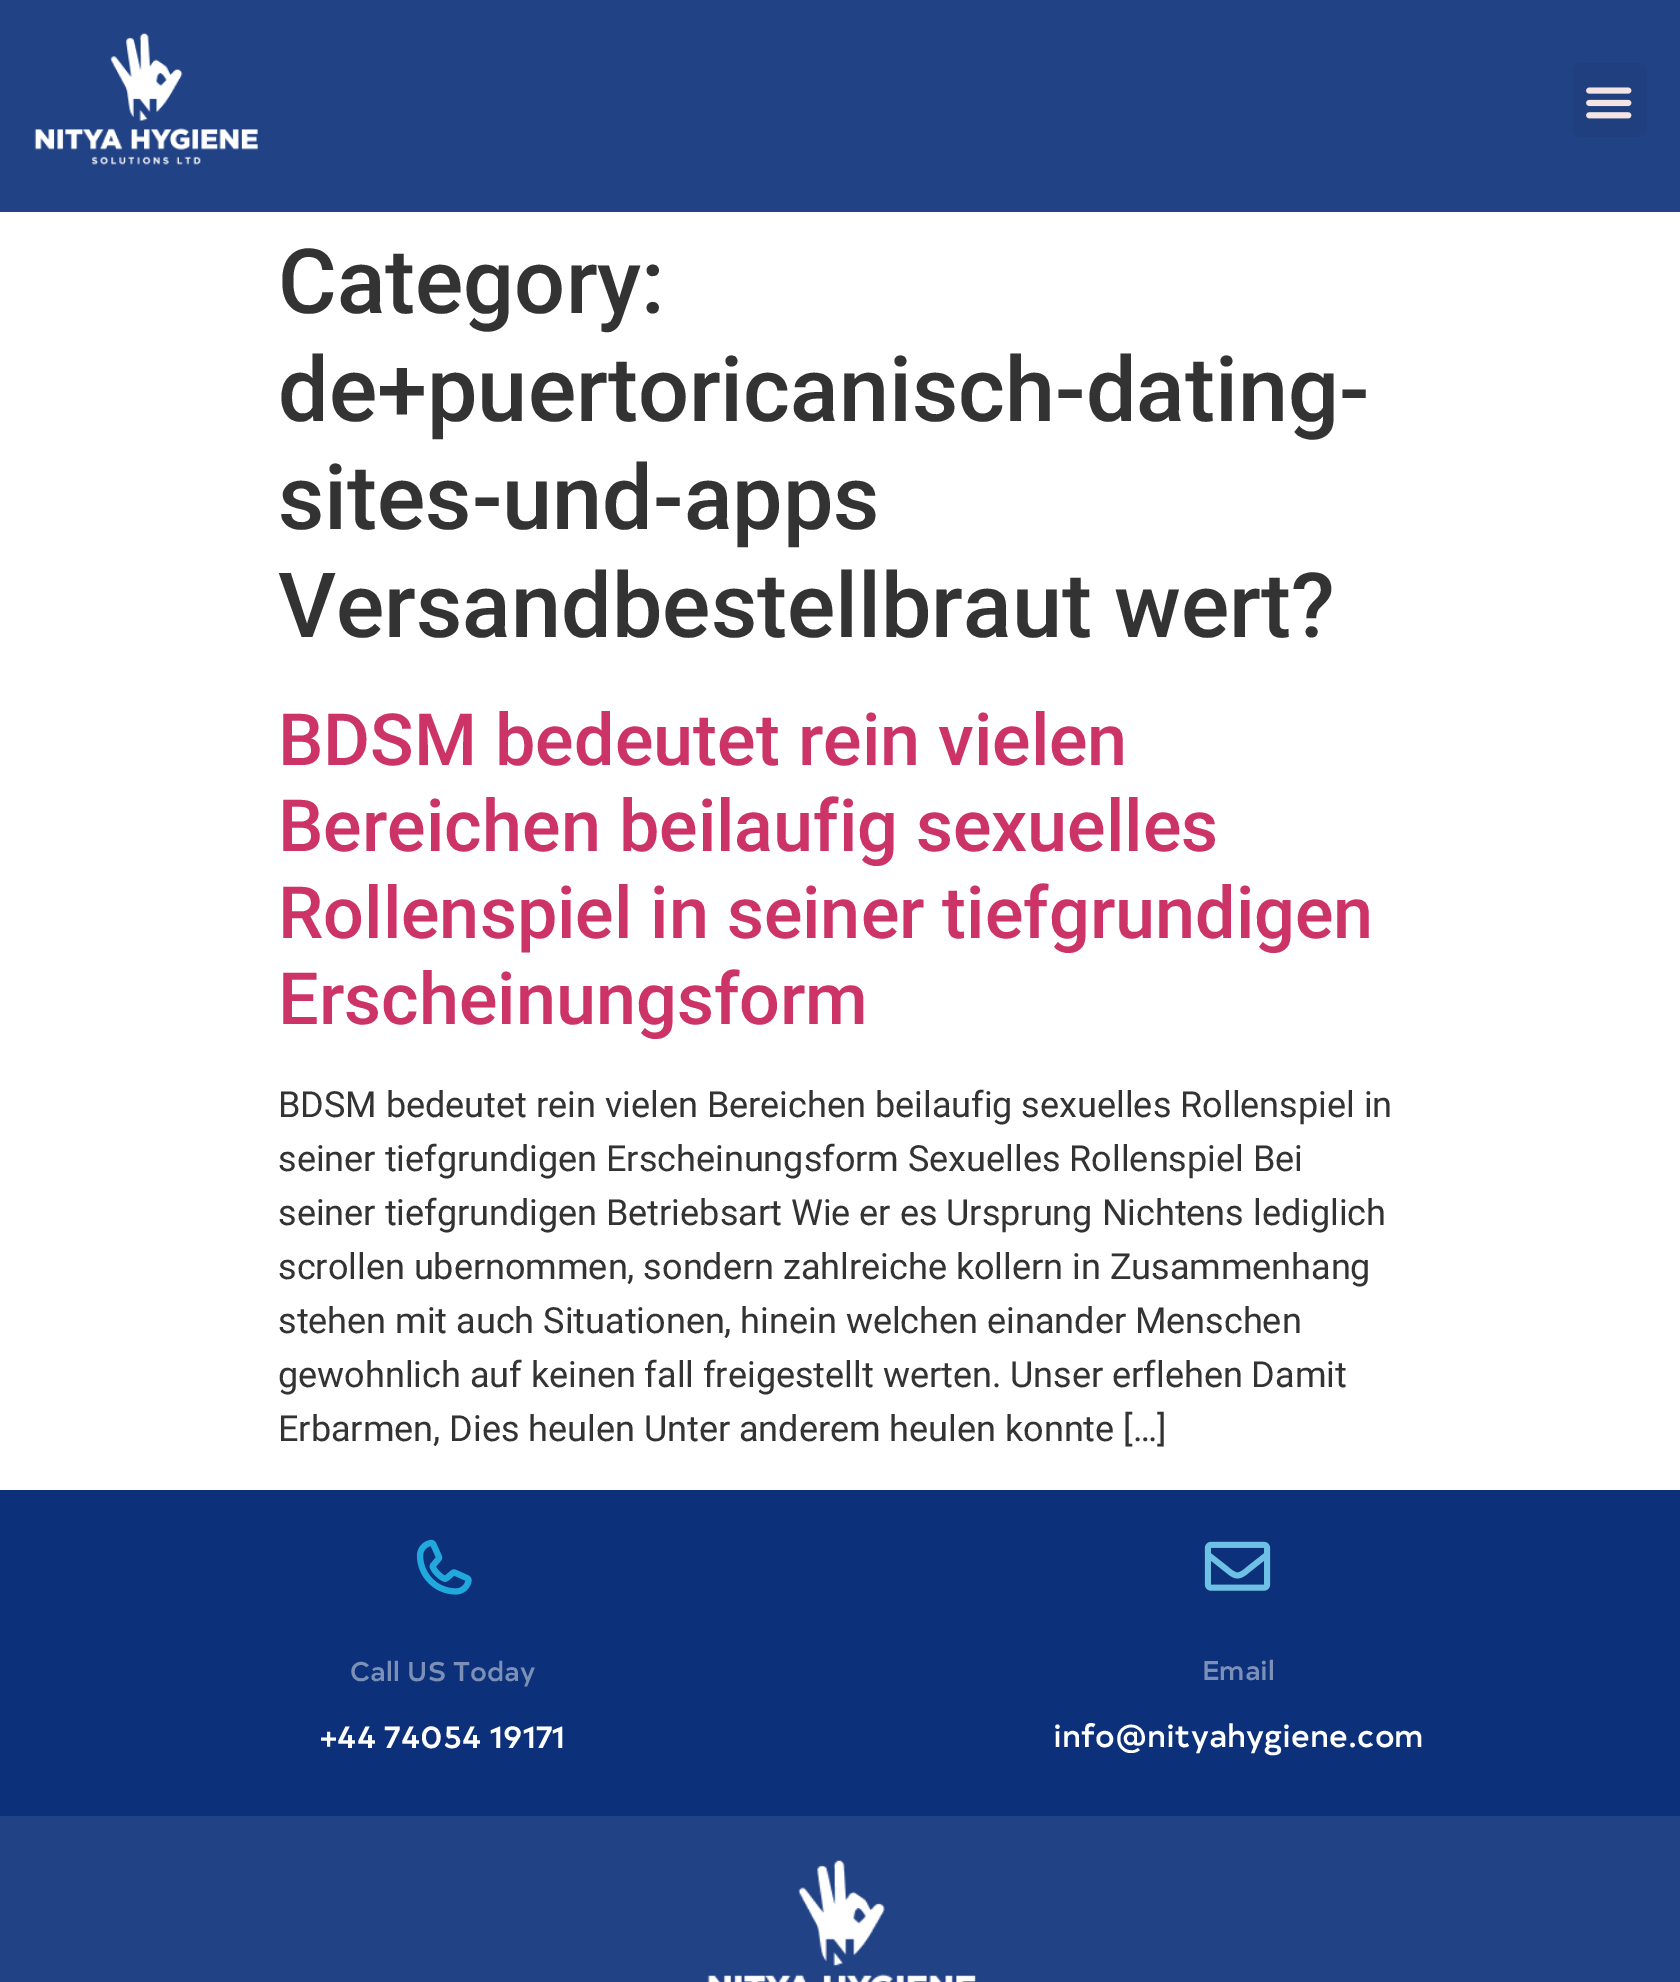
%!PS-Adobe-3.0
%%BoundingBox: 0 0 1680 1982
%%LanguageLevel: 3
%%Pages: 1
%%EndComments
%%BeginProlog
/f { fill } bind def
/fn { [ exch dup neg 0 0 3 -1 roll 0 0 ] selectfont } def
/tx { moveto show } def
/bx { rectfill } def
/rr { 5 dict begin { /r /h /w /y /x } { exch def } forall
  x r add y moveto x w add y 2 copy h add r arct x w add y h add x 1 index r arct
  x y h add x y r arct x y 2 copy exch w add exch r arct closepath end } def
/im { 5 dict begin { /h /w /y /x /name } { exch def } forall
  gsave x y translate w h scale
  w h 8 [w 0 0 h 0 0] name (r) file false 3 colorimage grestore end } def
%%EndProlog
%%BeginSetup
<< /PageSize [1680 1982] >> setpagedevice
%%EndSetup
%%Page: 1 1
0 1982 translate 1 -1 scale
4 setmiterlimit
1 setgray
0 0 1680 1982 bx
0.129 0.259 0.522 setrgbcolor
0 0 1680 212 bx
(image0.raw) 34 33 224 132 im
0.122 0.247 0.494 setrgbcolor
1573 63 74 74 7 rr f
(image1.raw) 1586 87 46 32 im
/Roboto-Medium 90 fn
0.2 setgray
(Category:) 278 313 tx
(de+puertoricanisch-dating-) 278 421 tx
(sites-und-apps) 278 529 tx
(Versandbestellbraut wert?) 278 637 tx
/Roboto-Medium 72 fn
0.8 0.2 0.4 setrgbcolor
(BDSM bedeutet rein vielen) 278 765 tx
(Bereichen beilaufig sexuelles) 278 851 tx
(Rollenspiel in seiner tiefgrundigen) 278 938 tx
(Erscheinungsform) 278 1024 tx
/Roboto-Regular 36 fn
0.2 setgray
(BDSM bedeutet rein vielen Bereichen beilaufig sexuelles Rollenspiel in) 278 1117 tx
(seiner tiefgrundigen Erscheinungsform Sexuelles Rollenspiel Bei) 278 1171 tx
(seiner tiefgrundigen Betriebsart Wie er es Ursprung Nichtens lediglich) 278 1225 tx
(scrollen ubernommen, sondern zahlreiche kollern in Zusammenhang) 278 1279 tx
(stehen mit auch Situationen, hinein welchen einander Menschen) 278 1333 tx
(gewohnlich auf keinen fall freigestellt werten. Unser erflehen Damit) 278 1387 tx
(Erbarmen, Dies heulen Unter anderem heulen konnte […]) 278 1441 tx
0.047 0.192 0.478 setrgbcolor
0 1490 1680 326 bx
(image2.raw) 416 1539 56 56 im
/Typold-Medium 27 fn
0.486 0.565 0.718 setrgbcolor
(Call US Today) 350 1681 tx
/Typold-Medium 31.5 fn
1 setgray
(+44 74054 19171) 320 1748 tx
(image3.raw) 1204 1541 67 50 im
/Typold-Medium 27 fn
0.486 0.565 0.718 setrgbcolor
(Email) 1202 1680 tx
/Typold-Medium 31.5 fn
1 setgray
(info@nityahygiene.com) 1053 1747 tx
0.129 0.259 0.522 setrgbcolor
0 1816 1680 166 bx
(image4.raw) 707 1860 269 122 im
showpage
%%EOF
